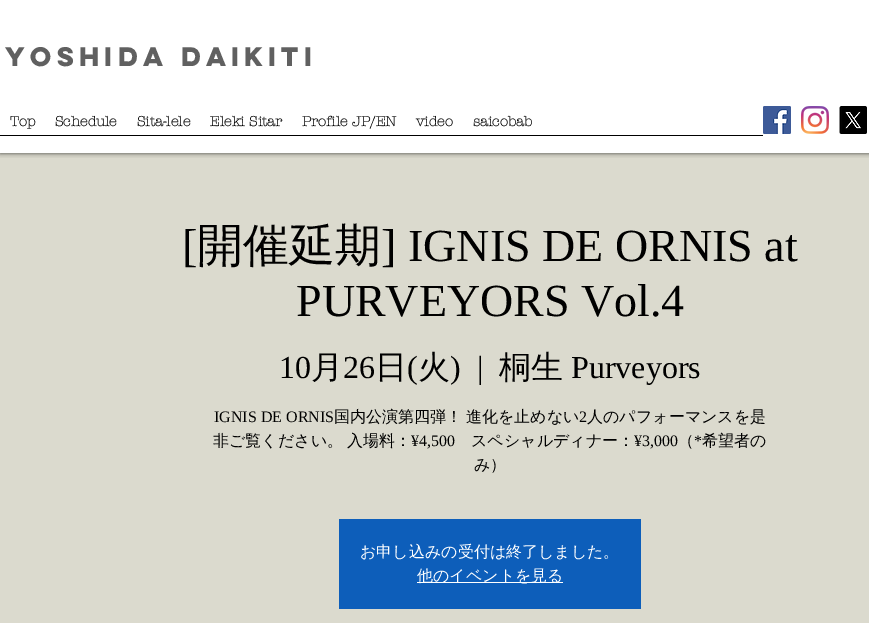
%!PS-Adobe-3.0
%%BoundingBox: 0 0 869 623
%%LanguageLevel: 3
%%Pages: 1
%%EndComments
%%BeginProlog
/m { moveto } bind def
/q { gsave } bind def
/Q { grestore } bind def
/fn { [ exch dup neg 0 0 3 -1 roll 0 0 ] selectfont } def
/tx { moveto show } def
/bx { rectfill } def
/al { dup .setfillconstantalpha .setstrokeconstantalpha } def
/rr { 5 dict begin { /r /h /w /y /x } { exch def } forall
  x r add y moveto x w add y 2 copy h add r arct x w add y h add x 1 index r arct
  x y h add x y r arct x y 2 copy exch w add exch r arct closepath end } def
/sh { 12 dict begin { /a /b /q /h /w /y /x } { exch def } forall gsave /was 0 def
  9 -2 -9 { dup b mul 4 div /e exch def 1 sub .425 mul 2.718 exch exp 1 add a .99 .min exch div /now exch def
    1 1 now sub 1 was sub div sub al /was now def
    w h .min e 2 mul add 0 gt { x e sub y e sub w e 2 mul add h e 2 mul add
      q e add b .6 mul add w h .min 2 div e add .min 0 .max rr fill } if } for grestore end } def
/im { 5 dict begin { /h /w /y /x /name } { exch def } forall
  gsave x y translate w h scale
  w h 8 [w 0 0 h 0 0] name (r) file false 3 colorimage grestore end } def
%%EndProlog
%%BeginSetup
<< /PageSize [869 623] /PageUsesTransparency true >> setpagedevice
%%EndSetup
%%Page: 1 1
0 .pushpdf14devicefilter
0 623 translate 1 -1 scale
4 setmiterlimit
1 setgray
0 0 869 623 bx
0.859 0.855 0.808 setrgbcolor
0 153 869 470 bx
q
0 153 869 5 rectclip
0 setgray
0 0 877 153 0 2.5 0.7 sh
Q
/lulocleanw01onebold-Bold 24 fn
0.376 setgray
(Yoshida Daikiti) 5 66 tx
/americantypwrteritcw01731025-Bold 14 fn
0 setgray
(Top) 10 126 tx
(Schedule) 55 126 tx
(Sita-lele) 137 126 tx
(Eleki Sitar) 210 126 tx
(Profile JP/EN) 302 126 tx
(video) 416 126 tx
(saicobab) 473 126 tx
0 135 763 1 bx
(image0.raw) 763 106 28 28 im
(image1.raw) 801 106 28 28 im
(image2.raw) 839 106 28 28 im
/LiberationSerif-Regular 46 fn
([) 182 261 tx
/WenQuanYiZenHei-Medium 46 fn
(開催延期) 197 261 tx
/LiberationSerif-Regular 46 fn
(] IGNIS DE ORNIS at) 381 261 tx
(PURVEYORS Vol.4) 296 316 tx
/LiberationSerif-Regular 32 fn
(10) 279 378 tx
/WenQuanYiZenHei-Medium 32 fn
(月) 311 378 tx
/LiberationSerif-Regular 32 fn
(26) 343 378 tx
/WenQuanYiZenHei-Medium 32 fn
(日) 375 378 tx
/LiberationSerif-Regular 32 fn
(\() 407 378 tx
/WenQuanYiZenHei-Medium 32 fn
(火) 418 378 tx
/LiberationSerif-Regular 32 fn
(\)) 450 378 tx
(|) 477 378 tx
/WenQuanYiZenHei-Medium 32 fn
(桐生) 499 378 tx
/LiberationSerif-Regular 32 fn
(Purveyors) 571 378 tx
/LiberationSerif-Regular 16 fn
(IGNIS DE ORNIS) 214 422 tx
/WenQuanYiZenHei-Medium 16 fn
(国内公演第四弾！) 334 422 tx
(進化を止めない) 466 422 tx
/LiberationSerif-Regular 16 fn
(2) 579 422 tx
/WenQuanYiZenHei-Medium 16 fn
(人のパフォーマンスを是) 587 422 tx
213 446 m -1 0 32 (非ご覧ください。 入場料：) widthshow
/LiberationSerif-Regular 16 fn
(¥4,500) 411 446 tx
/WenQuanYiZenHei-Medium 16 fn
(スペシャルディナー：) 471 446 tx
/LiberationSerif-Regular 16 fn
(¥3,000) 634 446 tx
/WenQuanYiZenHei-Medium 16 fn
(（) 678 446 tx
/LiberationSerif-Regular 16 fn
(*) 694 446 tx
/WenQuanYiZenHei-Medium 16 fn
(希望者の) 702 446 tx
(み）) 474 470 tx
0.051 0.369 0.729 setrgbcolor
339 519 302 90 bx
1 setgray
(お申し込みの受付は終了しました。) 360 557 tx
417 582 146 1 bx
(他のイベントを見る) 417 581 tx
.poppdf14devicefilter showpage
%%EOF
